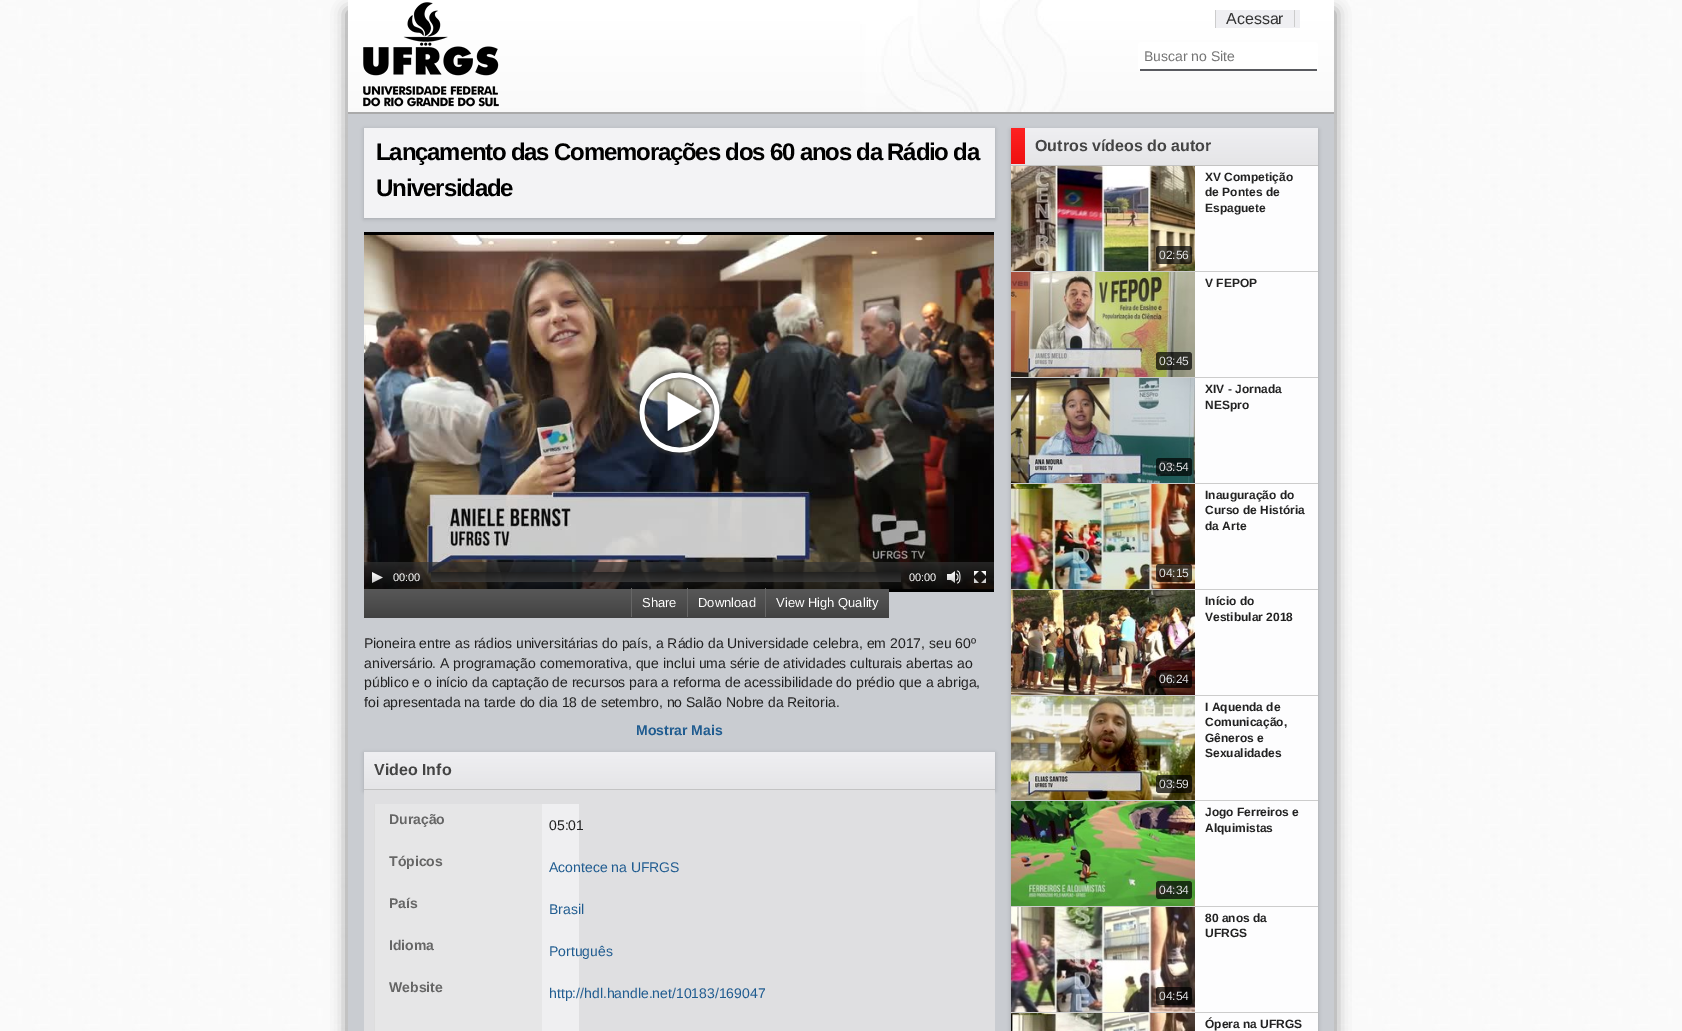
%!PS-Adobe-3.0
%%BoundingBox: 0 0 1682 1031
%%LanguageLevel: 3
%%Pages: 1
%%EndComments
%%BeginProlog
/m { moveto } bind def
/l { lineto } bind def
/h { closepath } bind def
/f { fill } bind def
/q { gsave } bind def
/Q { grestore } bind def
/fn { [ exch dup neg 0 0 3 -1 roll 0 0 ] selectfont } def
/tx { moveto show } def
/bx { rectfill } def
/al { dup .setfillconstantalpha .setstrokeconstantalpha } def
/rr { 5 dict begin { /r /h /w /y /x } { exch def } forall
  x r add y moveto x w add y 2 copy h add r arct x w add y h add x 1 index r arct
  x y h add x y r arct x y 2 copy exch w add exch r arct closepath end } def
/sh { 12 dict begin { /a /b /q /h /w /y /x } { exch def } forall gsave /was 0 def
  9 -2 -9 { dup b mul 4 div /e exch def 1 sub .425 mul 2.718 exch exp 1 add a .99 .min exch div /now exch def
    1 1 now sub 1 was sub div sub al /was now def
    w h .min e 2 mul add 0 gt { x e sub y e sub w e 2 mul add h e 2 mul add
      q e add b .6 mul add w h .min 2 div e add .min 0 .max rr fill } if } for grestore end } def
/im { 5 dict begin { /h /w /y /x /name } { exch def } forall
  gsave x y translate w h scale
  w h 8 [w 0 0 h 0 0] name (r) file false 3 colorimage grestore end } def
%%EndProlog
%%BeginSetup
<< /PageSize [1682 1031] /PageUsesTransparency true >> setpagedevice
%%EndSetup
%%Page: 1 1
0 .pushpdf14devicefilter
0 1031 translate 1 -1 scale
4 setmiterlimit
1 setgray
0 0 1682 1031 bx
(image0.raw) 0 0 1682 1031 im
0.533 setgray
347 11 988 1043 0 7.5 1 sh
(image1.raw) 348 0 986 112 im
0.667 setgray
348 112 986 2 bx
(image2.raw) 363 2 136 105 im
0.937 0.937 0.949 setrgbcolor
1216 10 84 18 bx
0.8 setgray
1215 10 1 18 bx
/Arimo-Regular 16 fn
0.2 setgray
(Acessar) 1226 24 tx
0.8 setgray
1294 10 1 17 bx
1 setgray
1138 42 180 29 3 rr f
0.349 0.353 0.373 setrgbcolor
1140 69 177 2 bx
/LiberationSans-Regular 14 fn
0.459 setgray
(Buscar no Site) 1144 61 tx
0.788 0.8 0.82 setrgbcolor
348 114 986 917 bx
0 setgray
364 129 631 90 0 2 0.17 sh
0.953 0.953 0.961 setrgbcolor
364 128 631 90 bx
/LiberationSans-Bold 24 fn
0 setgray
376 160 m -1.2 0 (Lançamento das Comemorações dos 60 anos da Rádio da) ashow
376 196 m -1.2 0 (Universidade) ashow
364 232 630 360 bx
(image3.raw) 364 235 630 354 im
(image4.raw) 634 367 89 89 im
0.7 al
q 364 562 m 994 562 l 994 590 l 364 590 l h clip newpath
<< /ShadingType 2 /ColorSpace /DeviceRGB /Coords [679 562 679 592] /Extend [true true] /Function << /FunctionType 2 /Domain [0 1] /C0 [0.196 0.196 0.196] /C1 [0 0 0] /N 1 >> >> shfill Q
1 al
(image5.raw) 372 572 11 11 im
/LiberationSans-Regular 11 fn
1 setgray
(00:00) 393 581 tx
0.8 al
q 431 572 470 10 2 rr clip newpath
<< /ShadingType 2 /ColorSpace /DeviceRGB /Coords [666 572 666 582] /Extend [true true] /Function << /FunctionType 2 /Domain [0 1] /C0 [0.118 0.118 0.118] /C1 [0.235 0.235 0.235] /N 1 >> >> shfill Q
1 al
(00:00) 909 581 tx
(image6.raw) 947 570 14 14 im
(image7.raw) 974 571 12 12 im
0.2 setgray
364 589 525 29 bx
(image8.raw) 364 589 525 29 im
/Arimo-Regular 13 fn
1 setgray
(Share) 642 607 tx
0.4 setgray
631 588 1 29 bx
1 setgray
(Download) 698 607 tx
0.4 setgray
687 588 1 29 bx
1 setgray
(View High Quality) 776 607 tx
0.4 setgray
765 588 1 29 bx
/Arimo-Regular 14 fn
0.133 setgray
(Pioneira entre as rádios universitárias do país, a Rádio da Universidade celebra, em 2017, seu 60º) 364 648 tx
(aniversário. A programação comemorativa, que inclui uma série de atividades culturais abertas ao) 364 668 tx
(público e o início da captação de recursos para a reforma de acessibilidade do prédio que a abriga,) 364 687 tx
(foi apresentada na tarde do dia 18 de setembro, no Salão Nobre da Reitoria.) 364 707 tx
/Arimo-Bold 14 fn
0.125 0.361 0.565 setrgbcolor
(Mostrar Mais) 636 735 tx
0 setgray
364 753 631 38 0 2 0.17 sh
q 364 752 m 995 752 l 995 789 l 364 789 l h clip newpath
<< /ShadingType 2 /ColorSpace /DeviceRGB /Coords [680 752 680 789] /Extend [true true] /Function << /FunctionType 2 /Domain [0 1] /C0 [0.937 0.937 0.949] /C1 [0.898 0.898 0.906] /N 1 >> >> shfill Q
0.765 setgray
364 789 631 1 bx
/LiberationSans-Bold 16 fn
0.267 setgray
(Video Info) 374 775 tx
0.875 0.875 0.882 setrgbcolor
364 790 631 241 bx
0.937 0.937 0.945 setrgbcolor
542 804 37 227 bx
0.867 setgray
374 804 1 227 bx
0.902 0.902 0.906 setrgbcolor
375 804 167 227 bx
/Arimo-Bold 14 fn
0.4 setgray
(Duração) 389 824 tx
/Arimo-Regular 14 fn
0.133 setgray
(05:01) 549 830 tx
/Arimo-Bold 14 fn
0.4 setgray
(Tópicos) 389 866 tx
/Arimo-Regular 14 fn
0.125 0.361 0.565 setrgbcolor
(Acontece na UFRGS) 549 872 tx
/Arimo-Bold 14 fn
0.4 setgray
(País) 389 908 tx
/Arimo-Regular 14 fn
0.125 0.361 0.565 setrgbcolor
(Brasil) 549 914 tx
/Arimo-Bold 14 fn
0.4 setgray
(Idioma) 389 950 tx
/Arimo-Regular 14 fn
0.125 0.361 0.565 setrgbcolor
(Português) 549 956 tx
/Arimo-Bold 14 fn
0.4 setgray
(Website) 389 992 tx
/Arimo-Regular 14 fn
0.125 0.361 0.565 setrgbcolor
(http://hdl.handle.net/10183/169047) 549 998 tx
0 setgray
1011 130 307 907 0 2 0.21 sh
q 1011 128 m 1318 128 l 1318 165 l 1011 165 l h clip newpath
<< /ShadingType 2 /ColorSpace /DeviceRGB /Coords [1165 128 1165 165] /Extend [true true] /Function << /FunctionType 2 /Domain [0 1] /C0 [0.937 0.937 0.949] /C1 [0.898 0.898 0.906] /N 1 >> >> shfill Q
0.765 setgray
1011 165 307 1 bx
q 1011 128 m 1025 128 l 1025 164 l 1011 164 l h clip newpath
<< /ShadingType 2 /ColorSpace /DeviceRGB /Coords [1018 128 1018 164] /Extend [true true] /Function << /FunctionType 2 /Domain [0 1] /C0 [1 0.133 0.133] /C1 [0.933 0.067 0.067] /N 1 >> >> shfill Q
/LiberationSans-Bold 16 fn
0.267 setgray
(Outros vídeos do autor) 1035 151 tx
0.992 0.992 0.996 setrgbcolor
1195 166 123 865 bx
0.8 setgray
1011 271 307 1 bx
(image9.raw) 1011 166 184 105 im
/LiberationSans-Bold 12 fn
0.133 setgray
(XV Competição) 1205 181 tx
(de Pontes de) 1205 196 tx
(Espaguete) 1205 212 tx
0.7 al
0 setgray
1156 246 36 18 3 rr f
/Arimo-Regular 12 fn
1 al
0.875 0.875 0.882 setrgbcolor
(02:56) 1159 259 tx
0.8 setgray
1011 377 307 1 bx
(image10.raw) 1011 272 184 105 im
/LiberationSans-Bold 12 fn
0.133 setgray
(V FEPOP) 1205 287 tx
0.7 al
0 setgray
1156 352 36 18 3 rr f
/Arimo-Regular 12 fn
1 al
0.875 0.875 0.882 setrgbcolor
(03:45) 1159 365 tx
0.8 setgray
1011 483 307 1 bx
(image11.raw) 1011 378 184 105 im
/LiberationSans-Bold 12 fn
0.133 setgray
(XIV - Jornada) 1205 393 tx
(NESpro) 1205 409 tx
0.7 al
0 setgray
1156 458 36 18 3 rr f
/Arimo-Regular 12 fn
1 al
0.875 0.875 0.882 setrgbcolor
(03:54) 1159 471 tx
0.8 setgray
1011 589 307 1 bx
(image12.raw) 1011 484 184 105 im
/LiberationSans-Bold 12 fn
0.133 setgray
(Inauguração do) 1205 499 tx
(Curso de História) 1205 514 tx
(da Arte) 1205 530 tx
0.7 al
0 setgray
1156 564 36 18 3 rr f
/Arimo-Regular 12 fn
1 al
0.875 0.875 0.882 setrgbcolor
(04:15) 1159 577 tx
0.8 setgray
1011 695 307 1 bx
(image13.raw) 1011 590 184 105 im
/LiberationSans-Bold 12 fn
0.133 setgray
(Início do) 1205 605 tx
(Vestibular 2018) 1205 621 tx
0.7 al
0 setgray
1156 670 36 18 3 rr f
/Arimo-Regular 12 fn
1 al
0.875 0.875 0.882 setrgbcolor
(06:24) 1159 683 tx
0.8 setgray
1011 800 307 1 bx
(image14.raw) 1011 696 184 104 im
/LiberationSans-Bold 12 fn
0.133 setgray
(I Aquenda de) 1205 711 tx
(Comunicação,) 1205 726 tx
(Gêneros e) 1205 742 tx
(Sexualidades) 1205 757 tx
0.7 al
0 setgray
1156 775 36 18 3 rr f
/Arimo-Regular 12 fn
1 al
0.875 0.875 0.882 setrgbcolor
(03:59) 1159 788 tx
0.8 setgray
1011 906 307 1 bx
(image15.raw) 1011 801 184 105 im
/LiberationSans-Bold 12 fn
0.133 setgray
(Jogo Ferreiros e) 1205 816 tx
(Alquimistas) 1205 832 tx
0.7 al
0 setgray
1156 881 36 18 3 rr f
/Arimo-Regular 12 fn
1 al
0.875 0.875 0.882 setrgbcolor
(04:34) 1159 894 tx
0.8 setgray
1011 1012 307 1 bx
(image16.raw) 1011 907 184 105 im
/LiberationSans-Bold 12 fn
0.133 setgray
(80 anos da) 1205 922 tx
(UFRGS) 1205 937 tx
0.7 al
0 setgray
1156 987 36 18 3 rr f
/Arimo-Regular 12 fn
1 al
0.875 0.875 0.882 setrgbcolor
(04:54) 1159 1000 tx
(image17.raw) 1011 1013 184 18 im
/LiberationSans-Bold 12 fn
0.133 setgray
(Ópera na UFRGS) 1205 1028 tx
.poppdf14devicefilter showpage
%%EOF
